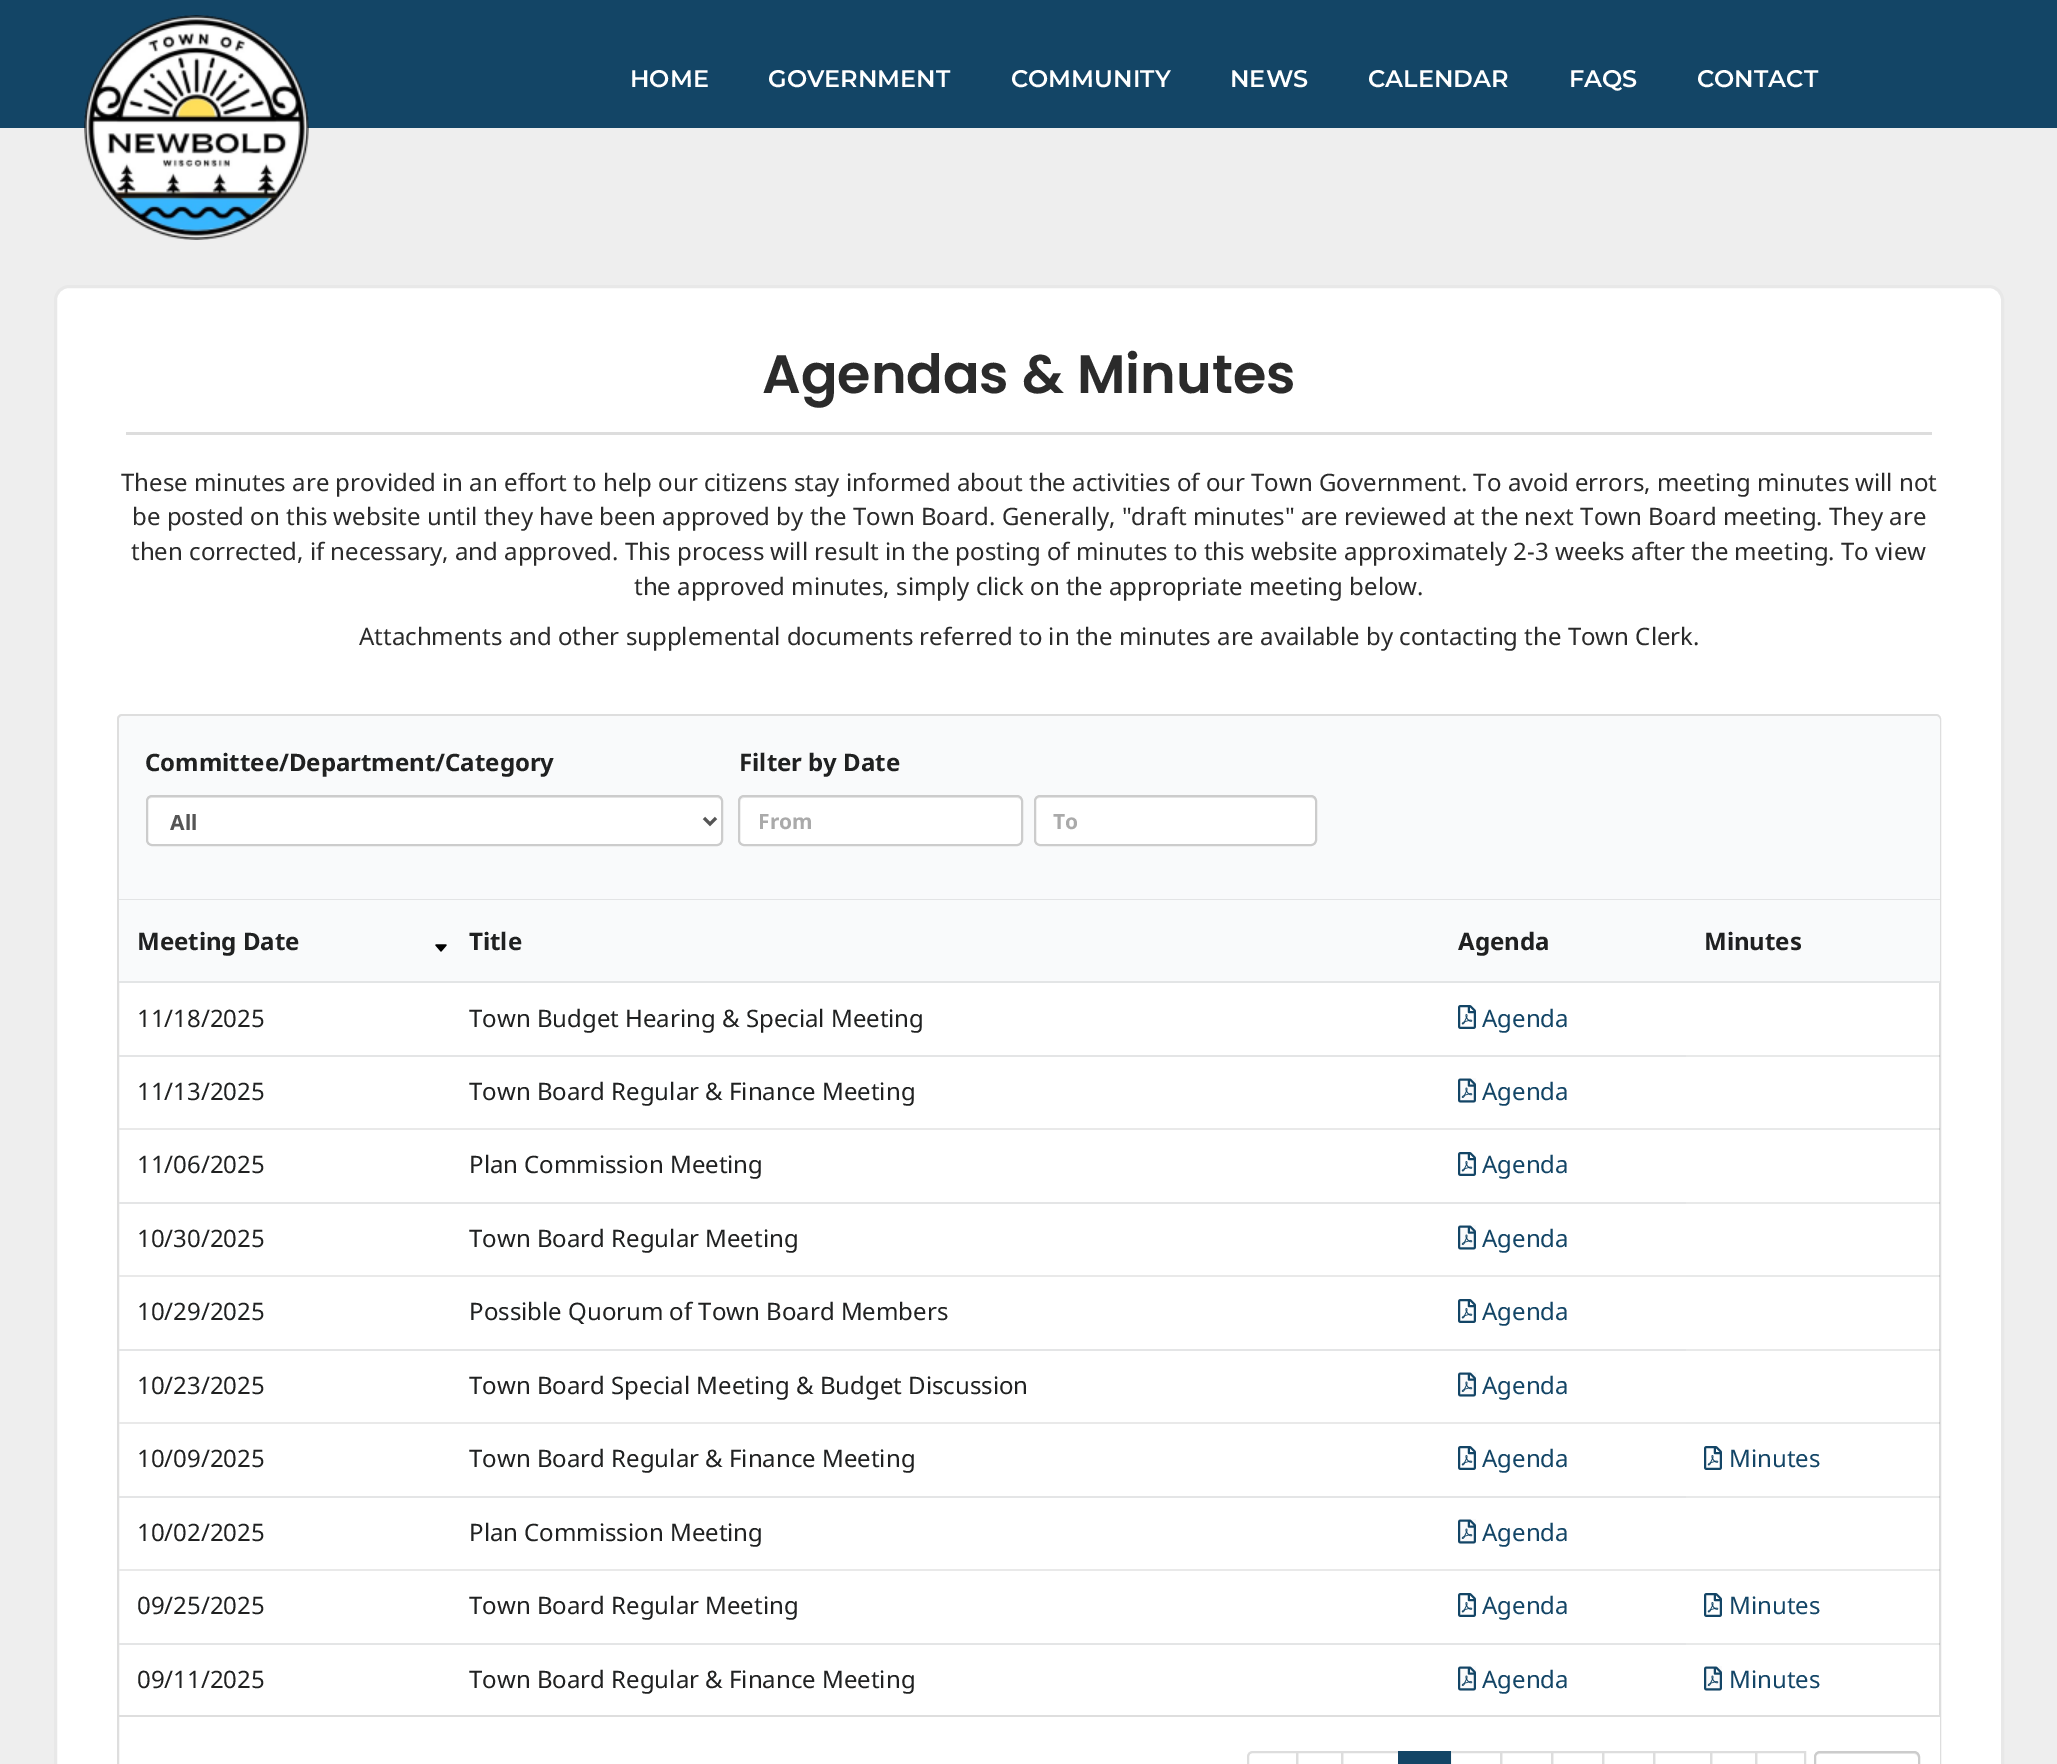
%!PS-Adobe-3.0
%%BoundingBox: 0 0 2057 1764
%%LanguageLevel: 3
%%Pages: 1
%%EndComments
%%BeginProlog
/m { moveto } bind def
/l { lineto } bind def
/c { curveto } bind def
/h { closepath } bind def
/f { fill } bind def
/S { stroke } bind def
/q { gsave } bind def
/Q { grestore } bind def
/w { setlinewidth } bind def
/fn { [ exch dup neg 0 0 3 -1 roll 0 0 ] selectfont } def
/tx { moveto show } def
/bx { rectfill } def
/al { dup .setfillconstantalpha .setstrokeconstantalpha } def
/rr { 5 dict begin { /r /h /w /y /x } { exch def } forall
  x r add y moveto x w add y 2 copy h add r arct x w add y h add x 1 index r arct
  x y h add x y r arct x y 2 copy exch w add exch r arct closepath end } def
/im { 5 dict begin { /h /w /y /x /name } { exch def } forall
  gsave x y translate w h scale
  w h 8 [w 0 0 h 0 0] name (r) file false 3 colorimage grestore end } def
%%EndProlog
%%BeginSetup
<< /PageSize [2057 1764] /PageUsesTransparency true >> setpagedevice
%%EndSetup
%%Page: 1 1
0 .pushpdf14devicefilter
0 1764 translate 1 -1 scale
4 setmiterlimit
0.933 setgray
0 0 2057 1764 bx
0.075 0.271 0.4 setrgbcolor
0 0 2057 128 bx
(image0.raw) 84 15 225 225 im
/Montserrat-Thin 24 fn
1 setgray
(HOME) 630 87 tx
(GOVERNMENT) 768 87 tx
(COMMUNITY) 1011 87 tx
(NEWS) 1230 87 tx
(CALENDAR) 1368 87 tx
(FAQS) 1569 87 tx
(CONTACT) 1697 87 tx
55.5 286.5 1947 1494 13.5 rr q f Q
0.91 setgray
3 w
S
/Poppins-SemiBold 54 fn
0.169 setgray
(Agendas & Minutes) 762 393 tx
0.867 setgray
126 432 1806 3 bx
/NotoSans-Regular 24 fn
0.169 setgray
(These minutes are provided in an effort to help our citizens stay informed about the activities of our Town Government. To avoid errors, meeting minutes will not) 121 491 tx
(be posted on this website until they have been approved by the Town Board. Generally, "draft minutes" are reviewed at the next Town Board meeting. They are) 132 525 tx
(then corrected, if necessary, and approved. This process will result in the posting of minutes to this website approximately 2-3 weeks after the meeting. To view) 131 560 tx
(the approved minutes, simply click on the appropriate meeting below.) 634 595 tx
(Attachments and other supplemental documents referred to in the minutes are available by contacting the Town Clerk.) 359 645 tx
0.871 setgray
2 w
118 715 1822 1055 4 rr S
0.976 0.98 0.984 setrgbcolor
124 716 m 1935 716 l 1938 716 1940 718 1940 721 c 1940 900 l 119 900 l 119 721 l 119 718 121 716 124 716 c h f
0.1 al
0.133 0.141 0.149 setrgbcolor
119 899 1821 1 bx
/NotoSans-Bold 24 fn
1 al
0.125 0.129 0.129 setrgbcolor
(Committee/Department/Category) 145 771 tx
1 setgray
146 795 577 51 6 rr f
0.925 setgray
152 798 m 717 798 l 719 798 722 800 722 802 c 722 799 720 797 717 797 c 152 797 l 149 797 147 799 147 802 c 147 800 149 798 152 798 c h f
0.8 setgray
147 796 575 49 5 rr S
0.333 setgray
3 w
704 818 m 710 824 l 716 818 l S
/NotoSans-Bold 21 fn
(All) 170 830 tx
/NotoSans-Bold 24 fn
0.125 0.129 0.129 setrgbcolor
(Filter by Date) 739 771 tx
1 setgray
738 795 285 51 6 rr f
0.925 setgray
744 798 m 1017 798 l 1019 798 1022 800 1022 802 c 1022 799 1020 797 1017 797 c 745 797 l 742 797 740 799 740 802 c 740 800 742 798 744 798 c h f
0.8 setgray
2 w
739 796 283 49 5 rr S
/NotoSans-Bold 21 fn
0.667 setgray
(From) 758 829 tx
1 setgray
1034 795 283 51 6 rr f
0.925 setgray
1040 798 m 1311 798 l 1313 798 1316 800 1316 802 c 1316 799 1314 797 1311 797 c 1040 797 l 1037 797 1035 799 1035 802 c 1035 800 1037 798 1040 798 c h f
0.8 setgray
1035 796 281 49 5 rr S
0.667 setgray
(To) 1053 829 tx
0.976 0.98 0.984 setrgbcolor
119 900 1821 81 bx
/NotoSans-Bold 24 fn
0.125 0.129 0.129 setrgbcolor
(Meeting Date) 137 950 tx
(image1.raw) 435 944 12 8 im
0.89 0.898 0.902 setrgbcolor
119 981 1821 2 bx
0.125 0.129 0.129 setrgbcolor
(Title) 469 950 tx
(Agenda) 1458 950 tx
(Minutes) 1704 950 tx
/NotoSans-Regular 24 fn
(11/18/2025) 137 1027 tx
(Town Budget Hearing & Special Meeting) 469 1027 tx
(image2.raw) 1458 1005 18 24 im
0.075 0.271 0.4 setrgbcolor
(Agenda) 1482 1027 tx
0.1 al
0.133 0.141 0.149 setrgbcolor
1686 1055 254 2 bx
1 al
0.894 0.898 0.902 setrgbcolor
119 1055 1567 2 bx
0.125 0.129 0.129 setrgbcolor
(11/13/2025) 137 1100 tx
(Town Board Regular & Finance Meeting) 469 1100 tx
(image3.raw) 1458 1078 18 25 im
0.075 0.271 0.4 setrgbcolor
(Agenda) 1482 1100 tx
0.1 al
0.133 0.141 0.149 setrgbcolor
1686 1128 254 2 bx
1 al
0.914 setgray
119 1128 1567 2 bx
0.125 0.129 0.129 setrgbcolor
(11/06/2025) 137 1173 tx
(Plan Commission Meeting) 469 1173 tx
(image2.raw) 1458 1152 18 24 im
0.075 0.271 0.4 setrgbcolor
(Agenda) 1482 1173 tx
0.1 al
0.133 0.141 0.149 setrgbcolor
1686 1202 254 2 bx
1 al
0.894 0.898 0.902 setrgbcolor
119 1202 1567 2 bx
0.125 0.129 0.129 setrgbcolor
(10/30/2025) 137 1247 tx
(Town Board Regular Meeting) 469 1247 tx
(image3.raw) 1458 1225 18 25 im
0.075 0.271 0.4 setrgbcolor
(Agenda) 1482 1247 tx
0.1 al
0.133 0.141 0.149 setrgbcolor
1686 1275 254 2 bx
1 al
0.914 setgray
119 1275 1567 2 bx
0.125 0.129 0.129 setrgbcolor
(10/29/2025) 137 1320 tx
(Possible Quorum of Town Board Members) 469 1320 tx
(image2.raw) 1458 1299 18 24 im
0.075 0.271 0.4 setrgbcolor
(Agenda) 1482 1320 tx
0.1 al
0.133 0.141 0.149 setrgbcolor
1686 1349 254 2 bx
1 al
0.894 0.898 0.902 setrgbcolor
119 1349 1567 2 bx
0.125 0.129 0.129 setrgbcolor
(10/23/2025) 137 1394 tx
(Town Board Special Meeting & Budget Discussion) 469 1394 tx
(image3.raw) 1458 1372 18 25 im
0.075 0.271 0.4 setrgbcolor
(Agenda) 1482 1394 tx
0.914 setgray
119 1422 1567 2 bx
0.125 0.129 0.129 setrgbcolor
(10/09/2025) 137 1467 tx
(Town Board Regular & Finance Meeting) 469 1467 tx
(image2.raw) 1458 1446 18 24 im
0.075 0.271 0.4 setrgbcolor
(Agenda) 1482 1467 tx
0.1 al
0.133 0.141 0.149 setrgbcolor
1686 1422 254 2 bx
1 al
(image2.raw) 1704 1446 18 24 im
0.075 0.271 0.4 setrgbcolor
(Minutes) 1729 1467 tx
0.1 al
0.133 0.141 0.149 setrgbcolor
1686 1496 254 2 bx
1 al
0.894 0.898 0.902 setrgbcolor
119 1496 1567 2 bx
0.125 0.129 0.129 setrgbcolor
(10/02/2025) 137 1541 tx
(Plan Commission Meeting) 469 1541 tx
(image3.raw) 1458 1519 18 25 im
0.075 0.271 0.4 setrgbcolor
(Agenda) 1482 1541 tx
0.914 setgray
119 1569 1567 2 bx
0.125 0.129 0.129 setrgbcolor
(09/25/2025) 137 1614 tx
(Town Board Regular Meeting) 469 1614 tx
(image2.raw) 1458 1593 18 24 im
0.075 0.271 0.4 setrgbcolor
(Agenda) 1482 1614 tx
0.1 al
0.133 0.141 0.149 setrgbcolor
1686 1569 254 2 bx
1 al
(image2.raw) 1704 1593 18 24 im
0.075 0.271 0.4 setrgbcolor
(Minutes) 1729 1614 tx
0.894 0.898 0.902 setrgbcolor
119 1643 1567 2 bx
0.125 0.129 0.129 setrgbcolor
(09/11/2025) 137 1688 tx
(Town Board Regular & Finance Meeting) 469 1688 tx
(image3.raw) 1458 1666 18 25 im
0.075 0.271 0.4 setrgbcolor
(Agenda) 1482 1688 tx
0.1 al
0.133 0.141 0.149 setrgbcolor
1686 1643 254 2 bx
1 al
(image3.raw) 1704 1666 18 25 im
0.075 0.271 0.4 setrgbcolor
(Minutes) 1729 1688 tx
1 setgray
1939 1717 1 47 bx
0.871 setgray
119 1715 1821 2 bx
0.867 setgray
1253 1752 m 1297 1752 l 1297 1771 l 1253 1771 l 1250 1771 1248 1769 1248 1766 c 1248 1757 l 1248 1754 1250 1752 1253 1752 c h S
1297 1752 45 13 rectstroke
1342 1752 57 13 rectstroke
1450 1752 51 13 rectstroke
0.075 0.271 0.4 setrgbcolor
1398 1751 53 13 bx
0.867 setgray
1501 1752 51 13 rectstroke
1552 1752 51 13 rectstroke
1603 1752 51 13 rectstroke
1654 1752 57 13 rectstroke
1711 1752 45 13 rectstroke
1756 1752 49 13 rectstroke
0.925 setgray
1820 1754 m 1914 1754 l 1916 1754 1918 1756 1918 1758 c 1918 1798 l 1917 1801 l 1918 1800 1919 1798 1919 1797 c 1919 1757 l 1919 1754 1917 1752 1914 1752 c 1820 1752 l 1817 1752 1815 1754 1815 1757 c 1815 1758 l 1815 1756 1817 1754 1820 1754 c h f
0.8 setgray
1815 1752 104 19 5 rr S
.poppdf14devicefilter showpage
%%EOF
